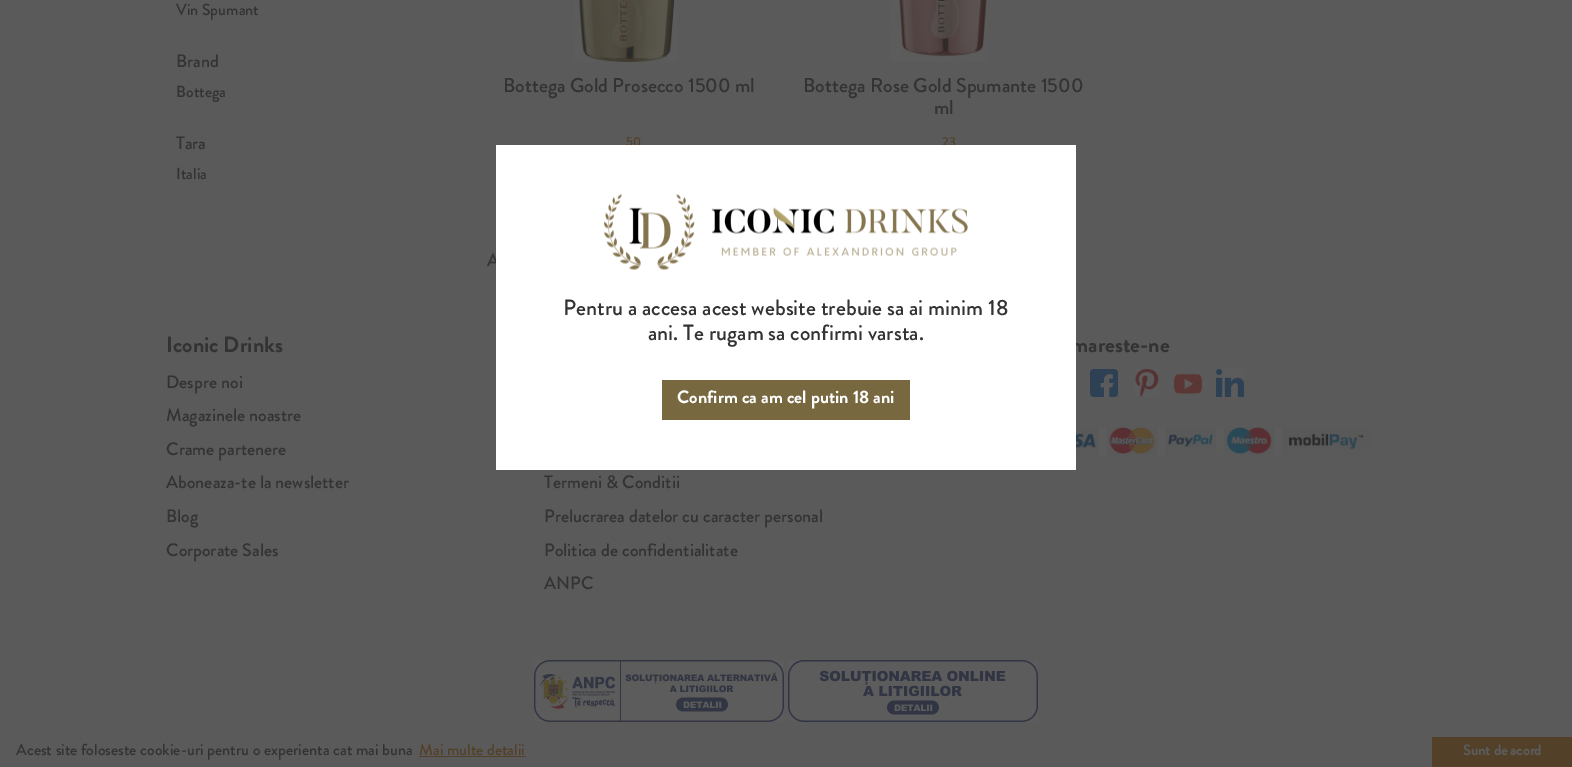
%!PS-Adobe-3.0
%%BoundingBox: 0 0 1572 767
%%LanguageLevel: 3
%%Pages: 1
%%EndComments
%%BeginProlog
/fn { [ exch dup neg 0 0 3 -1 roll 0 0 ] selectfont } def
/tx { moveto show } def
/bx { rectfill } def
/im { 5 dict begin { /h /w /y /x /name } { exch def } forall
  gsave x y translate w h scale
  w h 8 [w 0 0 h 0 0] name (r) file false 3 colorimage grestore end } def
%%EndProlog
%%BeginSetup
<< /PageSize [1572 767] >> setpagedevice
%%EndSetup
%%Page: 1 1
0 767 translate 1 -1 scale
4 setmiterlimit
0.353 setgray
0 0 1572 767 bx
/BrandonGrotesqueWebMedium-Regular 16 fn
0.2 setgray
(Vin Spumant) 176 15 tx
/BrandonGrotesqueWebMedium-Regular 18 fn
(Brand) 176 67 tx
/BrandonGrotesqueWebMedium-Regular 16 fn
(Bottega) 176 97 tx
/BrandonGrotesqueWebMedium-Regular 18 fn
(Tara) 176 149 tx
/BrandonGrotesqueWebMedium-Regular 16 fn
(Italia) 176 179 tx
(image0.raw) 573 0 104 62 im
/BrandonGrotesqueWebMedium-Regular 20 fn
(Bottega Gold Prosecco 1500 ml) 503 92 tx
/BrandonGrotesqueWebMedium-Regular 13 fn
0.325 0.251 0.161 setrgbcolor
(50) 626 146 tx
(image1.raw) 891 0 96 62 im
/BrandonGrotesqueWebMedium-Regular 20 fn
0.2 setgray
(Bottega Rose Gold Spumante 1500) 803 92 tx
(ml) 934 114 tx
/BrandonGrotesqueWebMedium-Regular 13 fn
0.325 0.251 0.161 setrgbcolor
(23) 942 146 tx
/BrandonGrotesqueWebMedium-Regular 18 fn
0.2 setgray
(A) 487 266 tx
/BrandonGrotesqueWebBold-Regular 22 fn
(mareste-ne) 1071 352 tx
1 setgray
496 145 580 325 bx
(image2.raw) 604 194 364 76 im
/BrandonGrotesqueWebMedium-Regular 22 fn
0.2 setgray
(Pentru a accesa acest website trebuie sa ai minim 18) 563 315 tx
(ani. Te rugam sa confirmi varsta.) 648 340 tx
0.467 0.408 0.251 setrgbcolor
662 380 248 40 bx
/BrandonGrotesqueWebBold-Regular 18 fn
1 setgray
(Confirm ca am cel putin 18 ani) 677 403 tx
/BrandonGrotesqueWebBold-Regular 22 fn
0.2 setgray
(Iconic Drinks) 166 352 tx
/BrandonGrotesqueWebMedium-Regular 18 fn
(Despre noi) 166 388 tx
(Magazinele noastre) 166 421 tx
(Crame partenere) 166 455 tx
(Aboneaza-te la newsletter) 166 488 tx
(Blog) 166 522 tx
(Corporate Sales) 166 556 tx
(image3.raw) 1090 369 28 28 im
(image4.raw) 1135 369 24 28 im
(image5.raw) 1174 374 28 20 im
(image6.raw) 1216 369 28 28 im
(image7.raw) 1076 427 294 28 im
(Termeni & Conditii) 544 488 tx
(Prelucrarea datelor cu caracter personal) 544 522 tx
(Politica de confidentialitate) 544 556 tx
(ANPC) 544 589 tx
(image8.raw) 534 660 250 62 im
(image9.raw) 788 660 250 62 im
/BrandonGrotesqueWebMedium-Regular 16 fn
(Acest site foloseste cookie-uri pentru o experienta cat mai buna) 16 755 tx
0.325 0.251 0.161 setrgbcolor
(Mai multe detalii) 419 755 tx
419 756 107 1 bx
1432 737 140 30 bx
/BrandonGrotesqueWebMedium-Bold 14.5 fn
0.361 setgray
(Sunt de acord) 1463 755 tx
showpage
%%EOF
